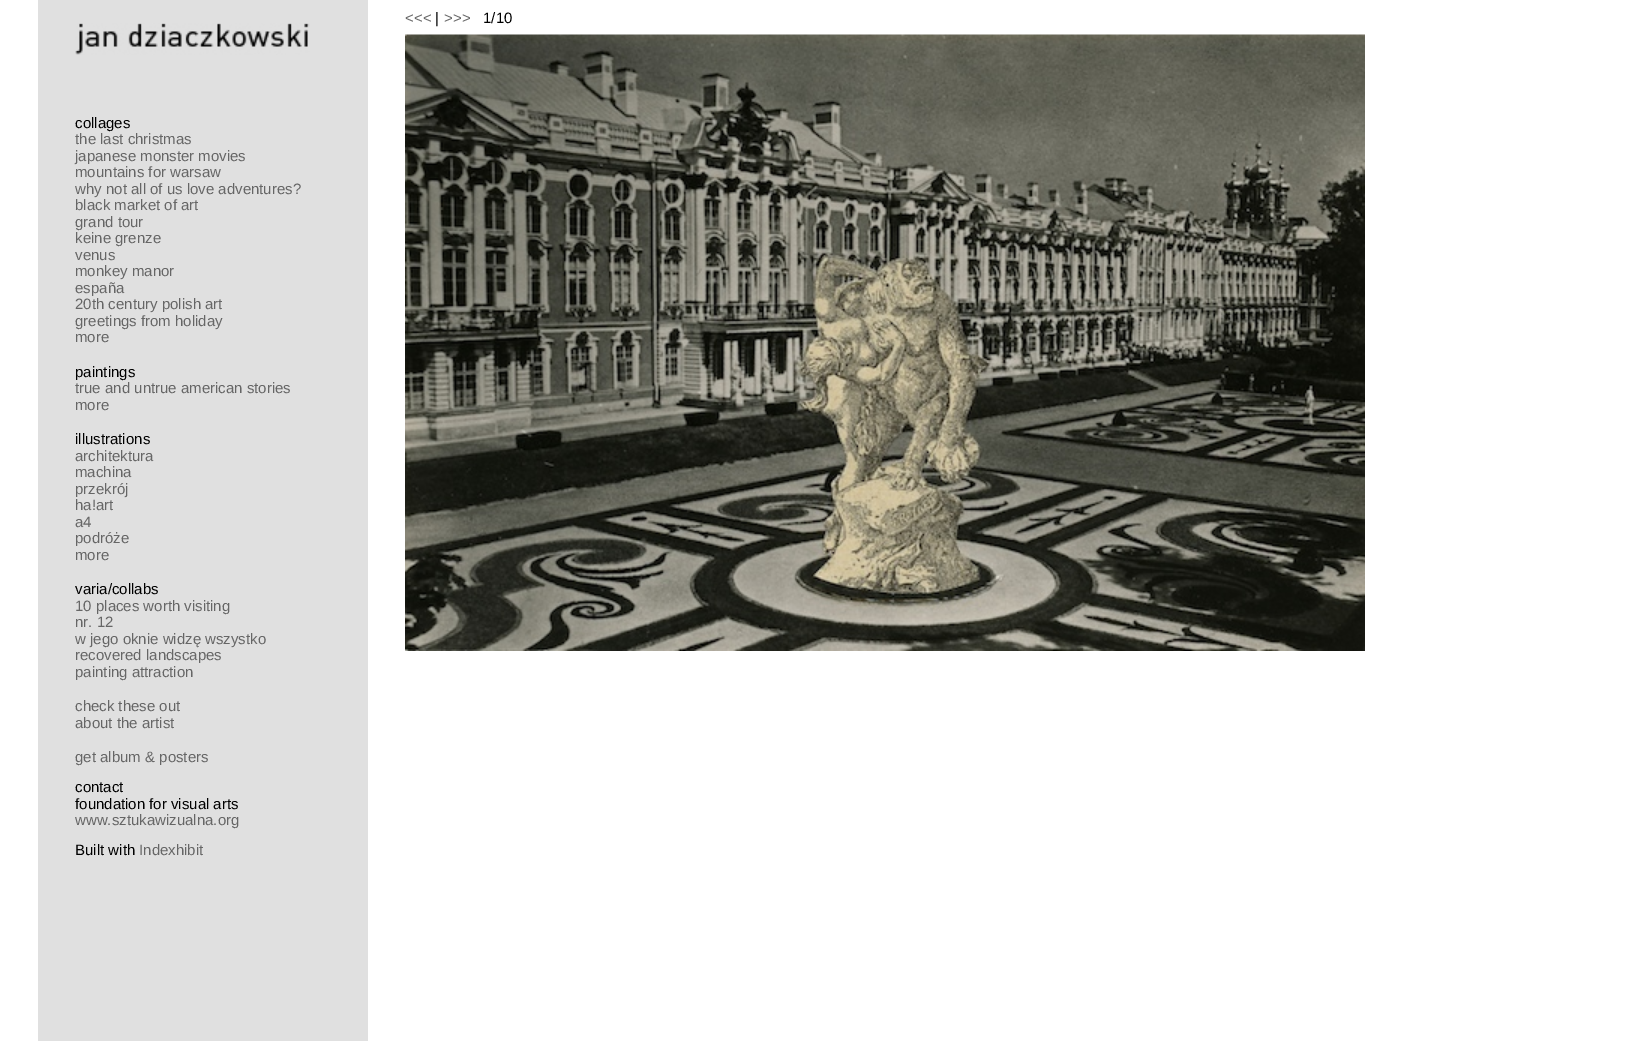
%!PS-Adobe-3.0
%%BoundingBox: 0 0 1648 1041
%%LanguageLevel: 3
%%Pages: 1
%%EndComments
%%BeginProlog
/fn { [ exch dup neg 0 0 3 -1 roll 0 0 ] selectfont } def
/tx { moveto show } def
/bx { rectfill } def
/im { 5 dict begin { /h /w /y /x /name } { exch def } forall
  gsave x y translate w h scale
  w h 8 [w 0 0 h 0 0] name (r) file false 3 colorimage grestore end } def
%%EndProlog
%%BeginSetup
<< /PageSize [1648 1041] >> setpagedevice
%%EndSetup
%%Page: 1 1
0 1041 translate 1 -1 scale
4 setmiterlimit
1 setgray
0 0 1648 1041 bx
/LiberationSans-Regular 15 fn
0.4 setgray
(<<<) 405 23 tx
0 setgray
(|) 435 23 tx
0.4 setgray
(>>>) 444 23 tx
0 setgray
(1/10) 483 23 tx
(image0.raw) 405 34 960 617 im
0.878 setgray
38 0 330 1041 bx
(image1.raw) 75 23 235 32 im
0 setgray
(collages) 75 128 tx
0.4 setgray
(the last christmas) 75 144 tx
(japanese monster movies) 75 161 tx
(mountains for warsaw) 75 177 tx
(why not all of us love adventures?) 75 194 tx
(black market of art) 75 210 tx
(grand tour) 75 227 tx
(keine grenze) 75 243 tx
(venus) 75 260 tx
(monkey manor) 75 276 tx
(españa) 75 293 tx
(20th century polish art) 75 309 tx
(greetings from holiday) 75 326 tx
(more) 75 342 tx
0 setgray
(paintings) 75 377 tx
0.4 setgray
(true and untrue american stories) 75 393 tx
(more) 75 410 tx
0 setgray
(illustrations) 75 444 tx
0.4 setgray
(architektura) 75 461 tx
(machina) 75 477 tx
(przekrój) 75 494 tx
(ha!art) 75 510 tx
(a4) 75 527 tx
(podróże) 75 543 tx
(more) 75 560 tx
0 setgray
(varia/collabs) 75 594 tx
0.4 setgray
(10 places worth visiting) 75 611 tx
(nr. 12) 75 627 tx
(w jego oknie widzę wszystko) 75 644 tx
(recovered landscapes) 75 660 tx
(painting attraction) 75 677 tx
(check these out) 75 711 tx
(about the artist) 75 728 tx
(get album & posters) 75 762 tx
0 setgray
(contact) 75 792 tx
(foundation for visual arts) 75 809 tx
0.4 setgray
(www.sztukawizualna.org) 75 825 tx
0 setgray
(Built with) 75 855 tx
0.4 setgray
(Indexhibit) 139 855 tx
showpage
%%EOF
